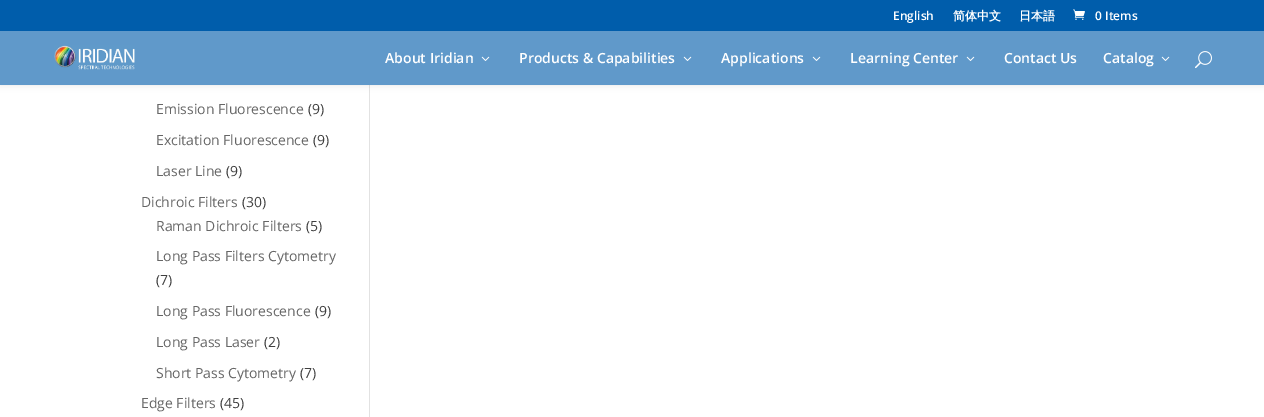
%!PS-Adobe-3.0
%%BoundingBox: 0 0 1264 417
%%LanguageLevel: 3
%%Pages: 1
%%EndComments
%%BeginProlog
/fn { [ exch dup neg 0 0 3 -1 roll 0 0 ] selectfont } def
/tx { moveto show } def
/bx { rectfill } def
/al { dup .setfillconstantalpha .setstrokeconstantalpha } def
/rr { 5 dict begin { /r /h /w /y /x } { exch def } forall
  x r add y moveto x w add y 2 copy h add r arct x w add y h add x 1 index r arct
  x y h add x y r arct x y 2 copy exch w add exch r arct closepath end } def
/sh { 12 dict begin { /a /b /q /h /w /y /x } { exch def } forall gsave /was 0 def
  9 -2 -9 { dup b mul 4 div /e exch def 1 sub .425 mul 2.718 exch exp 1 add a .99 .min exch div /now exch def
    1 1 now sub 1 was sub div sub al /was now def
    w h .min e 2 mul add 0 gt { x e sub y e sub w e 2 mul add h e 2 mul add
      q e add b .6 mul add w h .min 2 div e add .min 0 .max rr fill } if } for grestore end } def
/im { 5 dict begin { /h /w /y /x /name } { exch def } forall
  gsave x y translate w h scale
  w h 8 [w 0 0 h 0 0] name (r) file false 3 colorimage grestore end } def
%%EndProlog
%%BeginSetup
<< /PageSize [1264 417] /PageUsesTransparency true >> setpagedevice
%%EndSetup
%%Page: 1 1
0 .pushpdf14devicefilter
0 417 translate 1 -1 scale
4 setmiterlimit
1 setgray
0 0 1264 417 bx
0.886 setgray
369 85 1 332 bx
0 setgray
0 31 1264 54 0 3.5 0.1 sh
0 0.365 0.671 setrgbcolor
0 0 1264 31 bx
/OpenSans-SemiBold 12 fn
1 setgray
(English) 893 20 tx
/WenQuanYiZenHei-Bold 12 fn
(简体中文) 953 20 tx
(日本語) 1019 20 tx
(image0.raw) 1073 9 12 11 im
/OpenSans-SemiBold 12 fn
(0 Items) 1095 20 tx
0.376 0.6 0.792 setrgbcolor
0 31 1264 54 bx
(image1.raw) 54 45 81 25 im
/OpenSans-SemiBold 14 fn
1 setgray
(About Iridian) 385 63 tx
(image2.raw) 481 56 9 5 im
(Products & Capabilities) 519 63 tx
(image2.raw) 683 56 9 5 im
(Applications) 721 63 tx
(image2.raw) 812 56 9 5 im
(Learning Center) 850 63 tx
(image2.raw) 966 56 9 5 im
(Contact Us) 1004 63 tx
(Catalog) 1103 63 tx
(image2.raw) 1161 56 9 5 im
(image3.raw) 1195 51 17 18 im
/OpenSans-Regular 14 fn
0.4 setgray
(Emission Fluorescence) 156 114 tx
0.247 setgray
(\(9\)) 308 114 tx
0.4 setgray
(Excitation Fluorescence) 156 145 tx
0.247 setgray
(\(9\)) 313 145 tx
0.4 setgray
(Laser Line) 156 176 tx
0.247 setgray
(\(9\)) 226 176 tx
0.4 setgray
(Dichroic Filters) 141 207 tx
0.247 setgray
(\(30\)) 242 207 tx
0.4 setgray
(Raman Dichroic Filters) 156 231 tx
0.247 setgray
(\(5\)) 306 231 tx
0.4 setgray
(Long Pass Filters Cytometry) 156 261 tx
0.247 setgray
(\(7\)) 156 285 tx
0.4 setgray
(Long Pass Fluorescence) 156 316 tx
0.247 setgray
(\(9\)) 315 316 tx
0.4 setgray
(Long Pass Laser) 156 347 tx
0.247 setgray
(\(2\)) 264 347 tx
0.4 setgray
(Short Pass Cytometry) 156 378 tx
0.247 setgray
(\(7\)) 300 378 tx
0.4 setgray
(Edge Filters) 141 408 tx
0.247 setgray
(\(45\)) 220 408 tx
.poppdf14devicefilter showpage
%%EOF
